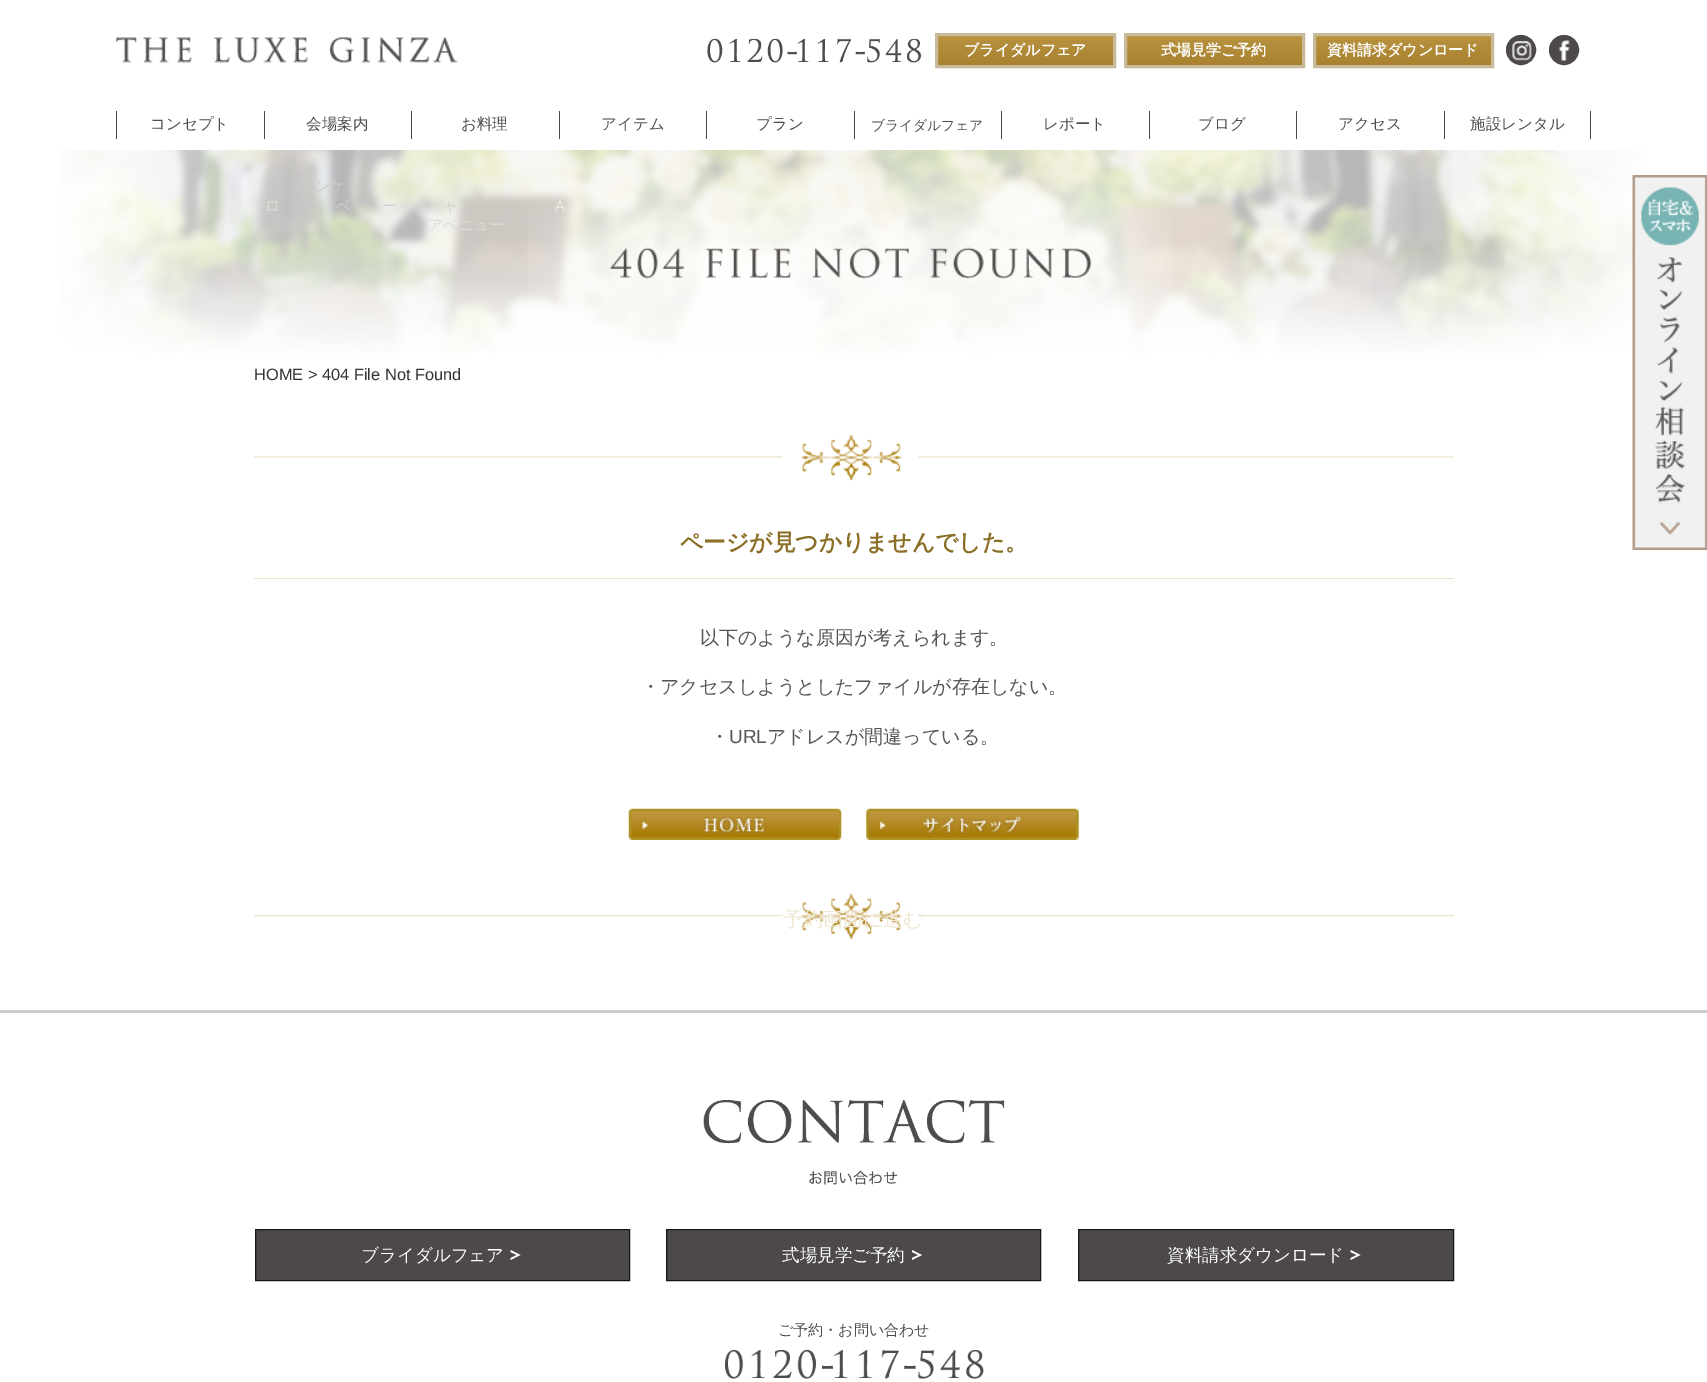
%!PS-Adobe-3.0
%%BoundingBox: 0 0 1707 1382
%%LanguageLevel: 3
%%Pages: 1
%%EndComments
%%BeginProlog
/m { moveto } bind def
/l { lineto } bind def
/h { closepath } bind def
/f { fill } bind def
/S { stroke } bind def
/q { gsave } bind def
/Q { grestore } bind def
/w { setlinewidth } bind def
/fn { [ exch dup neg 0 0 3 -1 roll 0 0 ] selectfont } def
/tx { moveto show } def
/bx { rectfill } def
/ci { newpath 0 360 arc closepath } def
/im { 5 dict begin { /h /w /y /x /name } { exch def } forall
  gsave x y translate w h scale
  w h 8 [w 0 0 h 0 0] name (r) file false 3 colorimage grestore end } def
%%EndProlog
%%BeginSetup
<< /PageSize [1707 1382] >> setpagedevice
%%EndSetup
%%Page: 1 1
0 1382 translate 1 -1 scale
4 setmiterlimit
1 setgray
0 0 1707 1382 bx
(image0.raw) 116 37 342 26 im
(image1.raw) 707 38 215 25 im
q 938 36 m 1113 36 l 1113 65 l 938 65 l h clip newpath
<< /ShadingType 2 /ColorSpace /DeviceRGB /Coords [1026 35 1026 65] /Extend [true true] /Function << /FunctionType 2 /Domain [0 1] /C0 [0.725 0.573 0.251] /C1 [0.659 0.51 0.184] /N 1 >> >> shfill Q
0.784 0.733 0.608 setrgbcolor
3 w
936.5 34.5 178 32 rectstroke
/WenQuanYiZenHei-Bold 15 fn
1 setgray
(ブライダルフェア) 964 55 tx
q 1127 36 m 1302 36 l 1302 65 l 1127 65 l h clip newpath
<< /ShadingType 2 /ColorSpace /DeviceRGB /Coords [1214 35 1214 65] /Extend [true true] /Function << /FunctionType 2 /Domain [0 1] /C0 [0.725 0.573 0.251] /C1 [0.659 0.51 0.184] /N 1 >> >> shfill Q
0.784 0.733 0.608 setrgbcolor
1125.5 34.5 178 32 rectstroke
1 setgray
(式場見学ご予約) 1161 55 tx
q 1316 36 m 1491 36 l 1491 65 l 1316 65 l h clip newpath
<< /ShadingType 2 /ColorSpace /DeviceRGB /Coords [1403 35 1403 65] /Extend [true true] /Function << /FunctionType 2 /Domain [0 1] /C0 [0.725 0.573 0.251] /C1 [0.659 0.51 0.184] /N 1 >> >> shfill Q
0.784 0.733 0.608 setrgbcolor
1314.5 34.5 178 32 rectstroke
1 setgray
(資料請求ダウンロード) 1327 55 tx
0.298 0.286 0.282 setrgbcolor
1521 50 14.5 ci q f Q
1 w
S
(image2.raw) 1512 41 20 20 im
1564 50 14.5 ci q f Q
S
(image3.raw) 1559 40 11 22 im
116 111 1 28 bx
/WenQuanYiZenHei-Medium 15.5 fn
0.302 setgray
(コンセプト) 150 129 tx
0.298 0.286 0.282 setrgbcolor
264 111 1 28 bx
0.302 setgray
(会場案内) 306 129 tx
(image5.raw) 61 150 1588 203 im
/WenQuanYiZenHei-Medium 15 fn
0.863 0.867 0.847 setrgbcolor
(ロ) 265 211 tx
0.792 0.796 0.788 setrgbcolor
(ンケ) 315 191 tx
0.816 0.824 0.804 setrgbcolor
(ベ) 336 211 tx
(ー) 382 211 tx
(ャ) 443 211 tx
0.863 0.867 0.847 setrgbcolor
(アベニュー) 428 230 tx
(image6.raw) 528 154 644 180 im
/LiberationSans-Regular 15 fn
0.929 0.925 0.894 setrgbcolor
(A) 555 211 tx
0.298 0.286 0.282 setrgbcolor
706 111 1 28 bx
/WenQuanYiZenHei-Medium 15.5 fn
0.302 setgray
(プラン) 756 129 tx
0.298 0.286 0.282 setrgbcolor
1149 111 1 28 bx
0.302 setgray
(ブログ) 1198 129 tx
0.298 0.286 0.282 setrgbcolor
411 111 1 28 bx
0.302 setgray
(お料理) 461 129 tx
0.298 0.286 0.282 setrgbcolor
559 111 1 28 bx
0.302 setgray
(アイテム) 601 129 tx
0.298 0.286 0.282 setrgbcolor
854 111 1 28 bx
/WenQuanYiZenHei-Medium 13.75 fn
0.302 setgray
(ブライダルフェア) 871 130 tx
0.298 0.286 0.282 setrgbcolor
1001 111 1 28 bx
/WenQuanYiZenHei-Medium 15.5 fn
0.302 setgray
(レポート) 1043 129 tx
0.298 0.286 0.282 setrgbcolor
1296 111 1 28 bx
0.302 setgray
(アクセス) 1338 129 tx
0.298 0.286 0.282 setrgbcolor
1444 111 1 28 bx
0.302 setgray
(施設レンタル) 1470 129 tx
0.298 0.286 0.282 setrgbcolor
1590 111 1 28 bx
(image4.raw) 1632 175 75 375 im
(image7.raw) 254 434 1200 47 im
/LiberationSans-Regular 16.4 fn
0.2 setgray
(HOME > 404 File Not Found) 254 380 tx
(image8.raw) 254 893 1200 46 im
0.929 0.89 0.796 setrgbcolor
254 578 1200 1 bx
/WenQuanYiZenHei-Bold 22.75 fn
0.545 0.431 0.145 setrgbcolor
(ページが見つかりませんでした。) 680 550 tx
/WenQuanYiZenHei-Medium 19 fn
0.333 setgray
(以下のような原因が考えられます。) 700 644 tx
(・アクセスしようとしたファイルが存在しない。) 641 693 tx
(・) 710 743 tx
/LiberationSans-Regular 19 fn
(URL) 729 743 tx
/WenQuanYiZenHei-Medium 19 fn
(アドレスが間違っている。) 767 743 tx
(image9.raw) 628 808 214 32 im
(image10.raw) 866 808 213 32 im
/WenQuanYiZenHei-Medium 20 fn
0.941 0.91 0.827 setrgbcolor
(予約画面に進む) 783 926 tx
0.8 setgray
0 1010 1707 3 bx
(image11.raw) 703 1100 302 85 im
0.298 0.286 0.282 setrgbcolor
255.5 1229.5 m 629.5 1229.5 l 629.5 1280.5 l 255.5 1280.5 l h q f Q
0.078 0.09 0.102 setrgbcolor
S
/WenQuanYiZenHei-Medium 17.5 fn
1 setgray
(ブライダルフェア) 361 1261 tx
510.5 1250 m 520.5 1255 l 517 1255 l 510.5 1252 l h 520.5 1255 m 510.5 1260 l 510.5 1258 l 517 1255 l h f
0.298 0.286 0.282 setrgbcolor
666.5 1229.5 m 1040.5 1229.5 l 1040.5 1280.5 l 666.5 1280.5 l h q f Q
0.078 0.09 0.102 setrgbcolor
S
1 setgray
(式場見学ご予約) 782 1261 tx
912 1250 m 922 1255 l 918.5 1255 l 912 1252 l h 922 1255 m 912 1260 l 912 1258 l 918.5 1255 l h f
0.298 0.286 0.282 setrgbcolor
1078.5 1229.5 m 1453.5 1229.5 l 1453.5 1280.5 l 1078.5 1280.5 l h q f Q
0.078 0.09 0.102 setrgbcolor
S
1 setgray
(資料請求ダウンロード) 1167 1261 tx
1350.5 1250 m 1360.5 1255 l 1357 1255 l 1350.5 1252 l h 1360.5 1255 m 1350.5 1260 l 1350.5 1258 l 1357 1255 l h f
/WenQuanYiZenHei-Medium 15 fn
0.302 setgray
(ご予約・お問い合わせ) 778 1335 tx
(image12.raw) 725 1350 259 29 im
showpage
%%EOF
